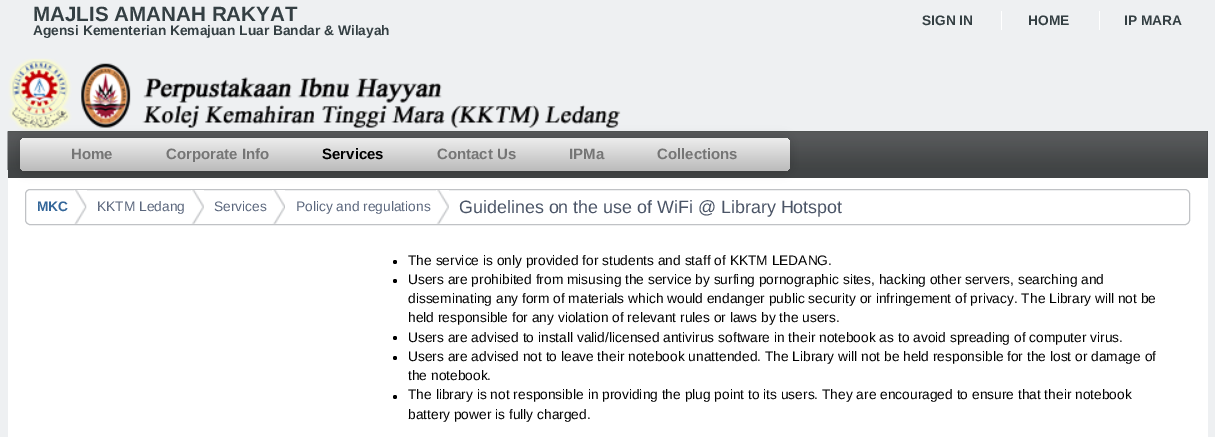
%!PS-Adobe-3.0
%%BoundingBox: 0 0 1215 437
%%LanguageLevel: 3
%%Pages: 1
%%EndComments
%%BeginProlog
/f { fill } bind def
/S { stroke } bind def
/q { gsave } bind def
/Q { grestore } bind def
/fn { [ exch dup neg 0 0 3 -1 roll 0 0 ] selectfont } def
/tx { moveto show } def
/bx { rectfill } def
/al { dup .setfillconstantalpha .setstrokeconstantalpha } def
/ci { newpath 0 360 arc closepath } def
/rr { 5 dict begin { /r /h /w /y /x } { exch def } forall
  x r add y moveto x w add y 2 copy h add r arct x w add y h add x 1 index r arct
  x y h add x y r arct x y 2 copy exch w add exch r arct closepath end } def
/sh { 12 dict begin { /a /b /q /h /w /y /x } { exch def } forall gsave /was 0 def
  9 -2 -9 { dup b mul 4 div /e exch def 1 sub .425 mul 2.718 exch exp 1 add a .99 .min exch div /now exch def
    1 1 now sub 1 was sub div sub al /was now def
    w h .min e 2 mul add 0 gt { x e sub y e sub w e 2 mul add h e 2 mul add
      q e add b .6 mul add w h .min 2 div e add .min 0 .max rr fill } if } for grestore end } def
/im { 5 dict begin { /h /w /y /x /name } { exch def } forall
  gsave x y translate w h scale
  w h 8 [w 0 0 h 0 0] name (r) file false 3 colorimage grestore end } def
%%EndProlog
%%BeginSetup
<< /PageSize [1215 437] /PageUsesTransparency true >> setpagedevice
%%EndSetup
%%Page: 1 1
0 .pushpdf14devicefilter
0 437 translate 1 -1 scale
4 setmiterlimit
0.933 0.941 0.949 setrgbcolor
0 0 1215 437 bx
/LiberationSans-Bold 20.6 fn
0.204 0.247 0.263 setrgbcolor
(MAJLIS AMANAH RAKYAT) 33 21 tx
/LiberationSans-Bold 13.75 fn
(Agensi Kementerian Kemajuan Luar Bandar & Wilayah) 33 35 tx
(SIGN IN) 922 25 tx
1 setgray
1001 11 1 19 bx
0.204 0.247 0.263 setrgbcolor
(HOME) 1028 25 tx
1 setgray
1099 11 1 19 bx
0.204 0.247 0.263 setrgbcolor
(IP MARA) 1124 25 tx
(image0.raw) 8 58 613 73 im
0.255 0.267 0.271 setrgbcolor
8 131 1200 47 bx
(image1.raw) 7 131 1201 39 im
1 setgray
8 178 1200 259 bx
0 setgray
20 138 770 33 6 5.5 0.15 sh
q 20 138 770 33 6 rr clip newpath
<< /ShadingType 2 /ColorSpace /DeviceRGB /Coords [405 137 405 171] /Extend [true true] /Function << /FunctionType 2 /Domain [0 1] /C0 [0.937 0.937 0.937] /C1 [0.733 0.733 0.733] /N 1 >> >> shfill Q
/LiberationSans-Bold 15 fn
0.459 setgray
(Home) 71 159 tx
(Corporate Info) 166 159 tx
0 setgray
(Services) 322 159 tx
0.459 setgray
(Contact Us) 437 159 tx
(IPMa) 569 159 tx
(Collections) 657 159 tx
0.753 0.761 0.773 setrgbcolor
25.5 189.5 1164 35 4.5 rr S
(image2.raw) 74 190 13 34 im
/LiberationSans-Bold 13.75 fn
0.2 0.4 0.6 setrgbcolor
(MKC) 37 211 tx
(image3.raw) 191 190 13 34 im
/LiberationSans-Regular 13.75 fn
0.357 0.404 0.49 setrgbcolor
(KKTM Ledang) 97 211 tx
(image4.raw) 272 190 13 34 im
(Services) 214 211 tx
(image3.raw) 436 190 13 34 im
(Policy and regulations) 296 211 tx
/LiberationSans-Regular 17.9 fn
0.294 0.333 0.404 setrgbcolor
(Guidelines on the use of WiFi @ Library Hotspot) 459 213 tx
0 setgray
395 262 2 ci f
/LiberationSans-Regular 13.75 fn
(The service is only provided for students and staff of KKTM LEDANG.) 408 265 tx
395 281 2 ci f
(Users are prohibited from misusing the service by surfing pornographic sites, hacking other servers, searching and) 408 284 tx
(disseminating any form of materials which would endanger public security or infringement of privacy. The Library will not be) 408 303 tx
(held responsible for any violation of relevant rules or laws by the users.) 408 322 tx
395 338 2 ci f
(Users are advised to install valid/licensed antivirus software in their notebook as to avoid spreading of computer virus.) 408 342 tx
395 358 2 ci f
(Users are advised not to leave their notebook unattended. The Library will not be held responsible for the lost or damage of) 408 361 tx
(the notebook.) 408 380 tx
395 397 2 ci f
(The library is not responsible in providing the plug point to its users. They are encouraged to ensure that their notebook) 408 399 tx
(battery power is fully charged.) 408 419 tx
.poppdf14devicefilter showpage
%%EOF
